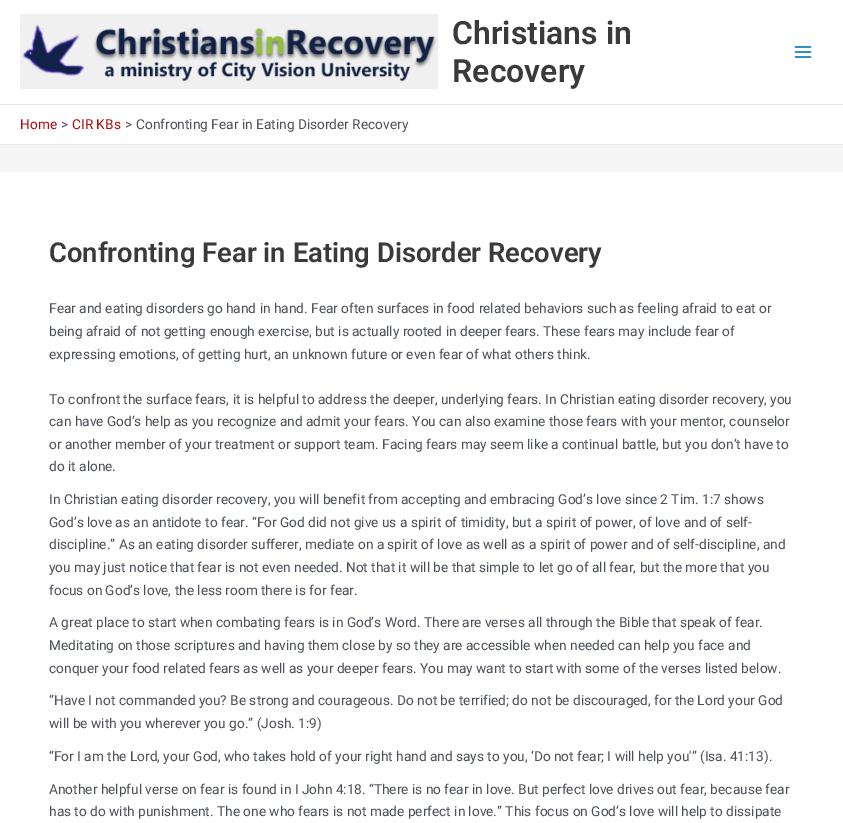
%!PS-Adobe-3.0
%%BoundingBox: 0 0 843 823
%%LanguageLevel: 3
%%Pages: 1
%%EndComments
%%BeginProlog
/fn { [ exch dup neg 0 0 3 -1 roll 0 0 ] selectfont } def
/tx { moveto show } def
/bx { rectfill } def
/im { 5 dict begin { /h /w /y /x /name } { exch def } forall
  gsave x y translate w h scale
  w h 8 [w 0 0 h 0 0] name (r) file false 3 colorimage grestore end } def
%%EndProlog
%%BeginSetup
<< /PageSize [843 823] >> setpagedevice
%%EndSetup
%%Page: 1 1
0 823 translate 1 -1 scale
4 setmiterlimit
0.961 setgray
0 0 843 823 bx
1 setgray
0 0 843 104 bx
0.898 setgray
0 104 843 1 bx
(image0.raw) 20 14 418 75 im
/Roboto-SemiBold 32 fn
0.227 setgray
(Christians in) 452 44 tx
(Recovery) 452 82 tx
(image1.raw) 794 46 18 12 im
1 setgray
0 105 843 39 bx
0.918 setgray
0 144 843 1 bx
/Roboto-Regular 13.68 fn
0.682 0.047 0.055 setrgbcolor
(Home) 20 129 tx
0.294 0.31 0.345 setrgbcolor
(>) 61 129 tx
0.682 0.047 0.055 setrgbcolor
(CIR KBs) 72 129 tx
0.294 0.31 0.345 setrgbcolor
(>) 125 129 tx
(Confronting Fear in Eating Disorder Recovery) 136 129 tx
1 setgray
0 172 843 651 bx
/Roboto-SemiBold 27.4 fn
0.227 setgray
(Confronting Fear in Eating Disorder Recovery) 49 262 tx
/Roboto-Regular 13.68 fn
0.294 0.31 0.345 setrgbcolor
(Fear and eating disorders go hand in hand. Fear often surfaces in food related behaviors such as feeling afraid to eat or) 49 313 tx
(being afraid of not getting enough exercise, but is actually rooted in deeper fears. These fears may include fear of) 49 336 tx
(expressing emotions, of getting hurt, an unknown future or even fear of what others think.) 49 359 tx
(To confront the surface fears, it is helpful to address the deeper, underlying fears. In Christian eating disorder recovery, you) 49 404 tx
(can have God’s help as you recognize and admit your fears. You can also examine those fears with your mentor, counselor) 49 426 tx
(or another member of your treatment or support team. Facing fears may seem like a continual battle, but you don’t have to) 49 449 tx
(do it alone.) 49 471 tx
(In Christian eating disorder recovery, you will benefit from accepting and embracing God’s love since 2 Tim. 1:7 shows) 49 504 tx
(God’s love as an antidote to fear. “For God did not give us a spirit of timidity, but a spirit of power, of love and of self-) 49 527 tx
(discipline.” As an eating disorder sufferer, mediate on a spirit of love as well as a spirit of power and of self-discipline, and) 49 549 tx
(you may just notice that fear is not even needed. Not that it will be that simple to let go of all fear, but the more that you) 49 572 tx
(focus on God’s love, the less room there is for fear.) 49 595 tx
(A great place to start when combating fears is in God’s Word. There are verses all through the Bible that speak of fear.) 49 627 tx
(Meditating on those scriptures and having them close by so they are accessible when needed can help you face and) 49 650 tx
(conquer your food related fears as well as your deeper fears. You may want to start with some of the verses listed below.) 49 673 tx
(“Have I not commanded you? Be strong and courageous. Do not be terrified; do not be discouraged, for the Lord your God) 49 705 tx
(will be with you wherever you go.” \(Josh. 1:9\)) 49 728 tx
(“For I am the Lord, your God, who takes hold of your right hand and says to you, ‘Do not fear; I will help you'” \(Isa. 41:13\).) 49 761 tx
(Another helpful verse on fear is found in I John 4:18. “There is no fear in love. But perfect love drives out fear, because fear) 49 794 tx
(has to do with punishment. The one who fears is not made perfect in love.” This focus on God’s love will help to dissipate) 49 816 tx
showpage
%%EOF
